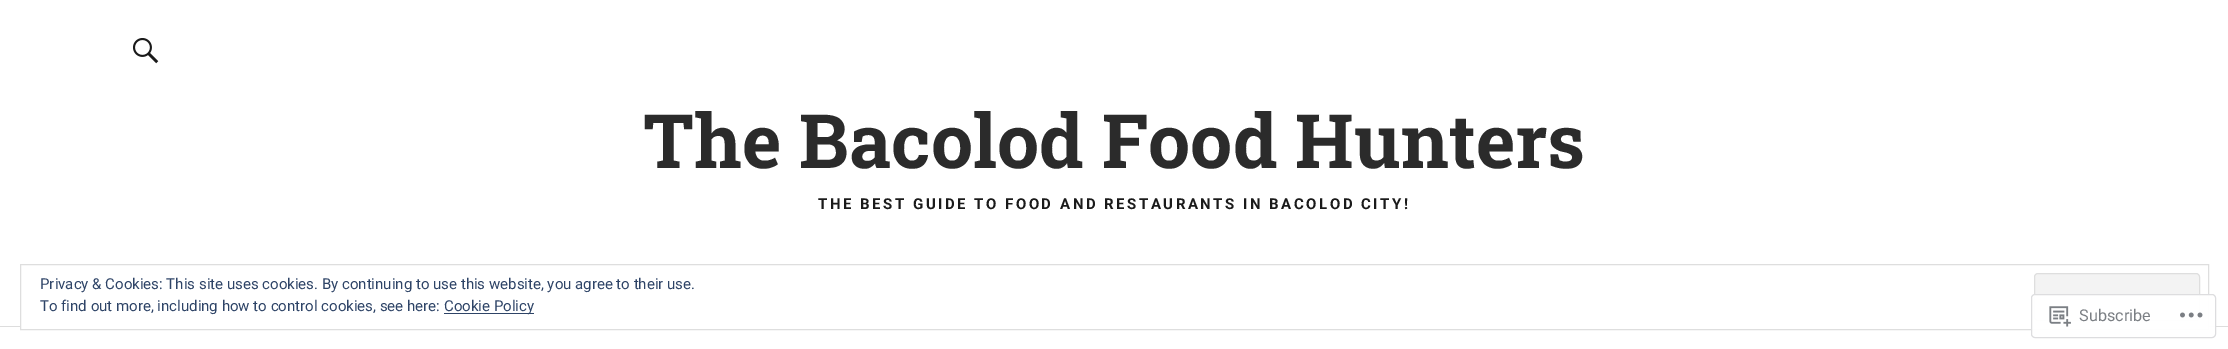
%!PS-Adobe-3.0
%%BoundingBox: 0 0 2228 349
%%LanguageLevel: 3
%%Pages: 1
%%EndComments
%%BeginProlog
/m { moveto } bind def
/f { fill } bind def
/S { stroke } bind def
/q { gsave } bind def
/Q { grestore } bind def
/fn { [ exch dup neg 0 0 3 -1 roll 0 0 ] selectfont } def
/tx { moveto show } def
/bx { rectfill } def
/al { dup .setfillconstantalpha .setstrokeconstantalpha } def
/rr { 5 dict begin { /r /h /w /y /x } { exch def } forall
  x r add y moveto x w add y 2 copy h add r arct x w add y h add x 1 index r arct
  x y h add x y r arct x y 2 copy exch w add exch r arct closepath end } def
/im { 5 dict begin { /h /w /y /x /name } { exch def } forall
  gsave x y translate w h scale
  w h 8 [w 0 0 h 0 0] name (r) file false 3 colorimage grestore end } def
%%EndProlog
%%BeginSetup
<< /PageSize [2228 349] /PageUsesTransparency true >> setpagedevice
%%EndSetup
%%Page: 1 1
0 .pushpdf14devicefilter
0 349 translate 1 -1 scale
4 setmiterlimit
1 setgray
0 0 2228 349 bx
0.867 setgray
0 326 2228 1 bx
(image0.raw) 133 38 26 26 im
/RobotoSlab-Bold 75 fn
0.169 setgray
(The Bacolod Food Hunters) 643 168 tx
/Roboto-Bold 15 fn
0.102 setgray
818 209 m 2.5 0 (THE BEST GUIDE TO FOOD AND RESTAURANTS IN BACOLOD CITY!) ashow
1 setgray
21 326 2187 1 bx
0.871 setgray
20.5 264.5 2188 65 rectstroke
/Roboto-Regular 15 fn
0.18 0.267 0.404 setrgbcolor
(Privacy & Cookies: This site uses cookies. By continuing to use this website, you agree to their use.) 40 289 tx
0.953 setgray
2034.5 273.5 165 47 3.5 rr q f Q
0.871 setgray
S
0.18 0.267 0.404 setrgbcolor
(To find out more, including how to control cookies, see here:) 40 311 tx
444 313 90 1 bx
(Cookie Policy) 444 311 tx
0.98 al
1 setgray
2031 294 185 44 4 rr f
0.863 0.863 0.871 setrgbcolor
2031.5 294.5 184 43 3.5 rr S
1 al
(image1.raw) 2049 306 22 21 im
/Roboto-Regular 16.25 fn
0.482 0.498 0.518 setrgbcolor
(Subscribe) 2079 321 tx
(image2.raw) 2180 312 23 6 im
.poppdf14devicefilter showpage
%%EOF
